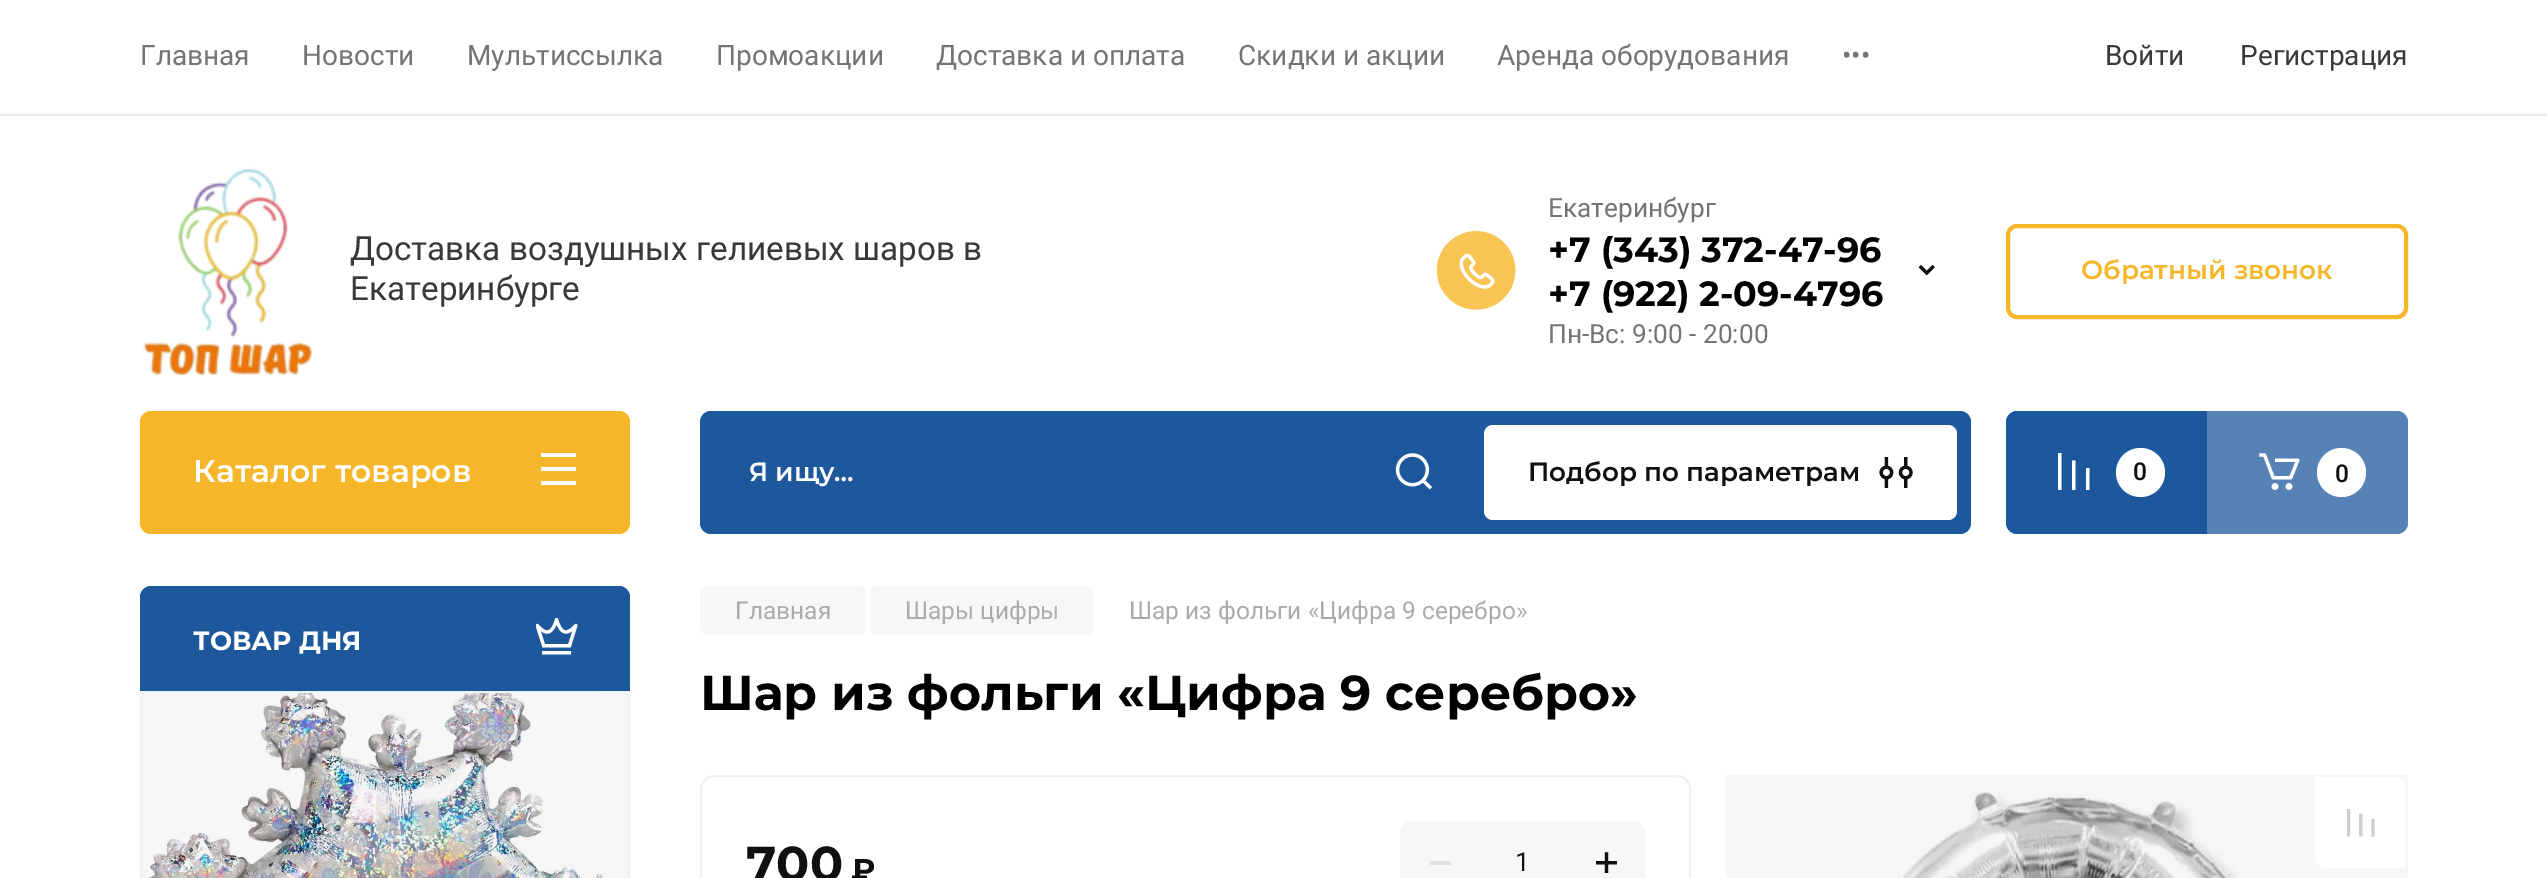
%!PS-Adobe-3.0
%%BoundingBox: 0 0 2547 878
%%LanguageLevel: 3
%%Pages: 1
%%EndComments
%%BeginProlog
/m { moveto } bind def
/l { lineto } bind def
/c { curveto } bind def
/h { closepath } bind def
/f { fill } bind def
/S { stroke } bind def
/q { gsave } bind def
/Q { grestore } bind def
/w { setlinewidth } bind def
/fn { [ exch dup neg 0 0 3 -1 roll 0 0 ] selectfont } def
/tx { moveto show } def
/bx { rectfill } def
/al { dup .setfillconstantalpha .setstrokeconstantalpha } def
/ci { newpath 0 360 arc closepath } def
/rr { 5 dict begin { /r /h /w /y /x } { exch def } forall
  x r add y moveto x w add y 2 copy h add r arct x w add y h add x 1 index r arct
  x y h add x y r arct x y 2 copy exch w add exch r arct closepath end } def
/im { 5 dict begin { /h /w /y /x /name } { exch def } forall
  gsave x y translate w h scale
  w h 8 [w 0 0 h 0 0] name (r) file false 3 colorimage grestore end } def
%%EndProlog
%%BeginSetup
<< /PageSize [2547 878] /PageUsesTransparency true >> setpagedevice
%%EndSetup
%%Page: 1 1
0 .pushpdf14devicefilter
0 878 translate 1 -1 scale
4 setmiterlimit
1 setgray
0 0 2547 878 bx
0.922 setgray
0 114 2547 2 bx
/Roboto-Regular 28 fn
0.455 setgray
(Главная) 140 65 tx
(Новости) 302 65 tx
(Мультиссылка) 467 65 tx
(Промоакции) 716 65 tx
(Доставка и оплата) 936 65 tx
(Скидки и акции) 1238 65 tx
(Аренда оборудования) 1497 65 tx
(•••) 1842 65 tx
0.224 setgray
(Войти) 2105 65 tx
(Регистрация) 2240 65 tx
(image0.raw) 143 167 169 209 im
/Roboto-Regular 33.25 fn
(Доставка воздушных гелиевых шаров в) 350 260 tx
(Екатеринбурге) 350 300 tx
(image1.raw) 1437 231 79 79 im
/Roboto-Regular 26.25 fn
0.455 setgray
(Екатеринбург) 1548 217 tx
/Montserrat-Bold 35 fn
0 setgray
(+7 \(343\) 372-47-96) 1548 262 tx
(+7 \(922\) 2-09-4796) 1548 306 tx
/Roboto-Regular 26.25 fn
0.455 setgray
(Пн-Вс: 9:00 - 20:00) 1548 343 tx
(image2.raw) 1918 264 17 12 im
0.965 0.714 0.161 setrgbcolor
4 w
2008 226 398 91 9 rr S
/Montserrat-SemiBold 26.25 fn
(Обратный звонок) 2081 279 tx
140 411 490 123 11 rr f
/Montserrat-SemiBold 31.5 fn
1 setgray
(Каталог товаров) 193 482 tx
541 453 m 576 453 l 576 457 l 541 457 l h 541 467 m 576 467 l 576 471 l 541 471 l h 576 481 m 541 481 l 541 485 l 576 485 l h f
0.114 0.345 0.616 setrgbcolor
700 411 1271 123 11 rr f
/Montserrat-SemiBold 26.25 fn
1 setgray
(Я ищу…) 749 481 tx
(image3.raw) 1395 453 37 37 im
1484 425 473 95 9 rr f
0.063 setgray
(Подбор по параметрам) 1528 481 tx
(image4.raw) 1879 457 34 31 im
0.114 0.345 0.616 setrgbcolor
2017 411 m 2207 411 l 2207 534 l 2017 534 l 2011 534 2006 529 2006 523 c 2006 422 l 2006 416 2011 411 2017 411 c h f
1 setgray
2089.5 490 m 2089.5 468 l 2086 468 l 2086 490 l h 2075.5 460.5 m 2075.5 490 l 2072 490 l 2072 460.5 l h 2061.5 453 m 2061.5 490 l 2058 490 l 2058 453 l h f
2140.5 472.5 24.5 ci f
/Roboto-Medium 24.5 fn
0.063 setgray
(0) 2133 480 tx
0.337 0.51 0.714 setrgbcolor
2207 411 m 2397 411 l 2403 411 2408 416 2408 422 c 2408 523 l 2408 529 2403 534 2397 534 c 2207 534 l h f
(image5.raw) 2259 453 41 37 im
1 setgray
2341.5 472.5 24.5 ci f
0.063 setgray
(0) 2335 482 tx
0.114 0.345 0.616 setrgbcolor
151 586 m 619 586 l 625 586 630 591 630 597 c 630 691 l 140 691 l 140 597 l 140 591 145 586 151 586 c h f
/Montserrat-Bold 26.25 fn
1 setgray
(ТОВАР ДНЯ) 193 650 tx
(image6.raw) 536 618 42 37 im
0.969 setgray
141 692 m 629 692 l 629 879 l 141 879 l h q f Q
0.929 0.949 0.969 setrgbcolor
2 w
S
(image7.raw) 145 693 459 185 im
0.969 setgray
700 586 166 49 7 rr f
/Roboto-Regular 24.5 fn
0.671 setgray
(Главная) 735 619 tx
0.969 setgray
870 586 224 49 7 rr f
0.671 setgray
(Шары цифры) 905 619 tx
(Шар из фольги «Цифра 9 серебро») 1129 619 tx
/Montserrat-Bold 49 fn
0 setgray
(Шар из фольги «Цифра 9 серебро») 700 710 tx
0.929 0.949 0.969 setrgbcolor
701 776 989 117 13 rr S
0.063 setgray
(700) 746 881 tx
/Montserrat-Bold 31.5 fn
(₽) 851 881 tx
0.969 setgray
1400 821 245 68 11 rr f
0.878 setgray
1430 861 21 4 bx
/Roboto-Regular 26.25 fn
0.063 setgray
(1) 1515 871 tx
(image8.raw) 1596 852 21 21 im
(image9.raw) 1902 792 336 86 im
0.03 al
0 setgray
1726 775 682 103 bx
1 al
1 setgray
2315 777 m 2395 777 l 2401 777 2406 782 2406 788 c 2406 868 l 2326 868 l 2320 868 2315 863 2315 857 c h f
(image10.raw) 2347 809 28 28 im
.poppdf14devicefilter showpage
%%EOF
